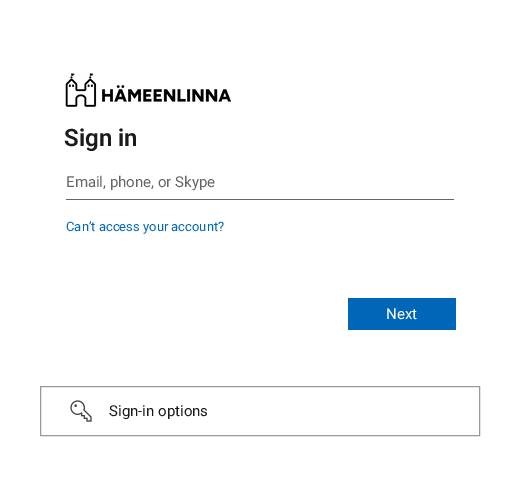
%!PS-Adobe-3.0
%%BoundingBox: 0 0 519 486
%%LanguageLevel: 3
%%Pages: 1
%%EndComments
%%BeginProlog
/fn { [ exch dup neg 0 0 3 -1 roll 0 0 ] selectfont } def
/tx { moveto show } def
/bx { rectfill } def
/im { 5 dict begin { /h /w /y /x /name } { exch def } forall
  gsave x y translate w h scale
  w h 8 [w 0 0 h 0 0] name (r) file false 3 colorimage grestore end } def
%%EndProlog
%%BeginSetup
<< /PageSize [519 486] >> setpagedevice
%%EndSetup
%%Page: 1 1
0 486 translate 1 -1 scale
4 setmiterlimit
1 setgray
0 0 519 486 bx
(image0.raw) 65 73 167 34 im
/Roboto-SemiBold 24 fn
0.106 setgray
(Sign in) 64 146 tx
0.4 setgray
66 199 388 1 bx
/Roboto-Regular 15 fn
(Email, phone, or Skype) 66 187 tx
/Roboto-Regular 13 fn
0 0.404 0.722 setrgbcolor
(Can’t access your account?) 66 231 tx
348 298 108 32 bx
/Roboto-Regular 15 fn
1 setgray
(Next) 386 319 tx
0.6 setgray
40.5 386.5 439 49 rectstroke
(image1.raw) 70 400 22 22 im
0.106 setgray
(Sign-in options) 109 416 tx
showpage
%%EOF
